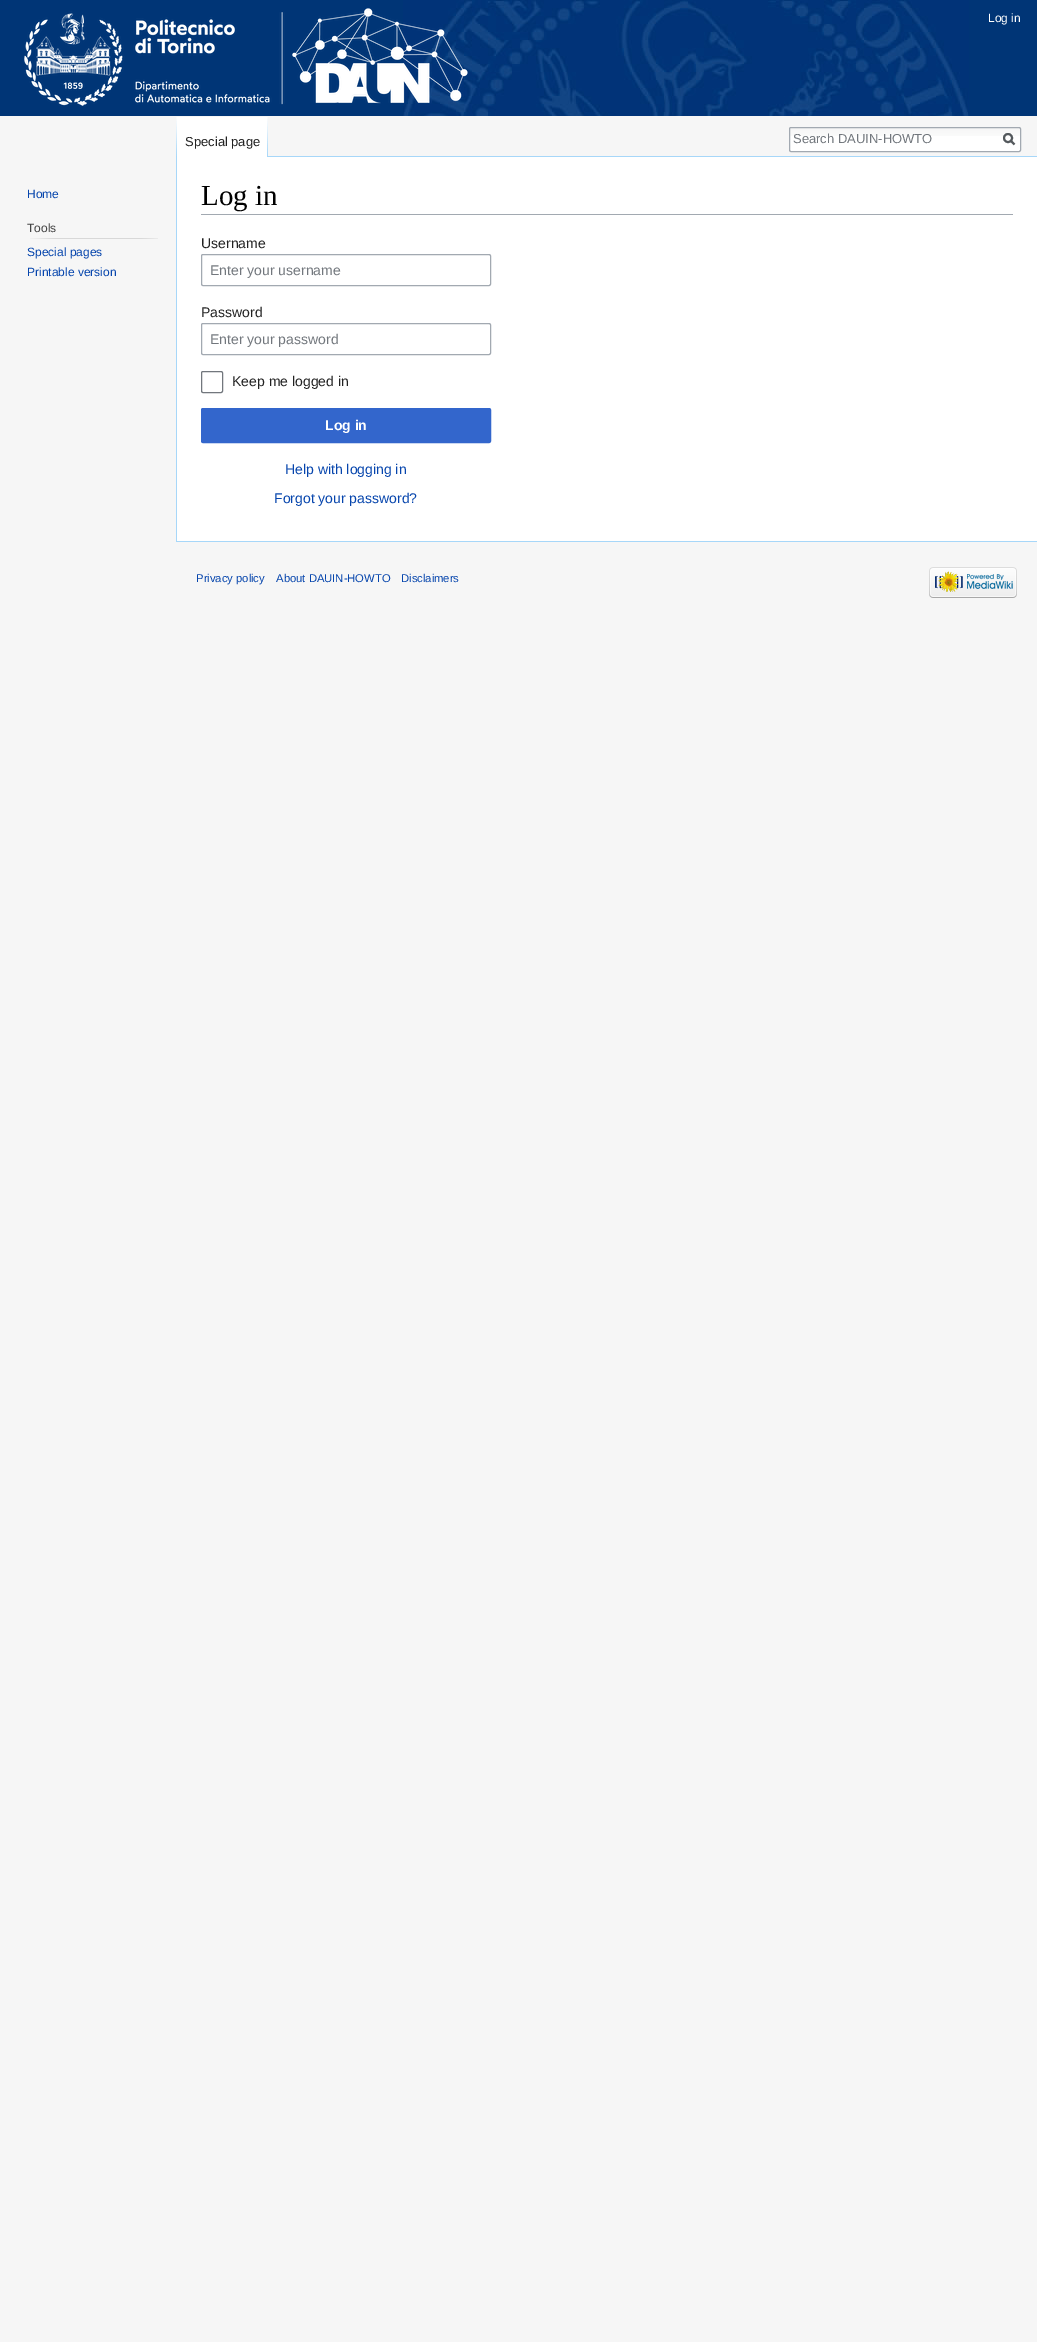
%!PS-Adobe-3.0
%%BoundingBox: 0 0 1037 2342
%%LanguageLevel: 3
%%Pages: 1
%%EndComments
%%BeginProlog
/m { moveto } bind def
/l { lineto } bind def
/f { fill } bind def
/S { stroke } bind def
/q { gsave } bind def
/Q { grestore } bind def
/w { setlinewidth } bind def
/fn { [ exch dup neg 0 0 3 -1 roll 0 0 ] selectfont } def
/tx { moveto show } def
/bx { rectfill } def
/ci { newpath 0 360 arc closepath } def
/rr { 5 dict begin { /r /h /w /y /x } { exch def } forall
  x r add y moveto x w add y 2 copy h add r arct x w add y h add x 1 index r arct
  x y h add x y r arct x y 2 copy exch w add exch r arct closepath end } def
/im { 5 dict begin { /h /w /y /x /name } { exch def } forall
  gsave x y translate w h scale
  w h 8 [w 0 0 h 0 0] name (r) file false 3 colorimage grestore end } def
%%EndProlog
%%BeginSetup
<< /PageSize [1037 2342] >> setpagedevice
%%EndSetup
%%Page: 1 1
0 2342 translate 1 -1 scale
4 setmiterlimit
0.965 setgray
0 0 1037 2342 bx
0 0.208 0.463 setrgbcolor
0 0 1037 116 bx
(image0.raw) 403 0 566 116 im
/LiberationSans-Regular 12 fn
1 setgray
(Log in) 988 22 tx
(image1.raw) 176 117 1 39 im
177 117 90 40 bx
(image2.raw) 267 117 1 40 im
/LiberationSans-Regular 13 fn
0.133 setgray
(Special page) 185 146 tx
1 setgray
789 127 232 25 2 rr f
(image3.raw) 789 128 232 8 im
0.635 0.663 0.694 setrgbcolor
789.5 127.5 231 24 1.5 rr S
0.447 0.467 0.49 setrgbcolor
(Search DAUIN-HOWTO) 793 143 tx
0.329 0.349 0.365 setrgbcolor
2 w
1014.5 144.5 m 1010.5 140.5 l S
1008 138 4 ci S
(image4.raw) 24 8 444 99 im
/LiberationSans-Regular 12 fn
0.024 0.271 0.678 setrgbcolor
(Home) 27 198 tx
0.267 setgray
(Tools) 27 232 tx
(image5.raw) 30 238 128 1 im
0.024 0.271 0.678 setrgbcolor
(Special pages) 27 256 tx
(Printable version) 27 276 tx
1 setgray
177 157 860 384 bx
0.655 0.843 0.976 setrgbcolor
268 156 769 1 bx
176 541 861 1 bx
176 156 1 386 bx
0.635 0.663 0.694 setrgbcolor
201 214 812 1 bx
/LiberationSerif-Regular 29 fn
0 setgray
(Log in) 201 205 tx
/LiberationSans-Regular 14 fn
0.133 setgray
(Username) 201 248 tx
0.635 0.663 0.694 setrgbcolor
1 w
201.5 254.5 289 31 1.5 rr S
0.447 0.467 0.49 setrgbcolor
(Enter your username) 210 275 tx
0.133 setgray
(Password) 201 317 tx
0.635 0.663 0.694 setrgbcolor
201.5 323.5 289 31 1.5 rr S
0.447 0.467 0.49 setrgbcolor
(Enter your password) 210 344 tx
201.5 371.5 21 21 1.5 rr S
0.133 setgray
(Keep me logged in) 232 386 tx
0.2 0.4 0.8 setrgbcolor
201.5 408.5 289 34 1.5 rr q f Q
S
/LiberationSans-Bold 14 fn
1 setgray
(Log in) 325 430 tx
/LiberationSans-Regular 14 fn
0.024 0.271 0.678 setrgbcolor
(Help with logging in) 285 474 tx
(Forgot your password?) 274 503 tx
/LiberationSans-Regular 11.25 fn
(Privacy policy) 196 582 tx
(About DAUIN-HOWTO) 276 582 tx
(Disclaimers) 401 582 tx
(image6.raw) 929 567 88 31 im
showpage
%%EOF
